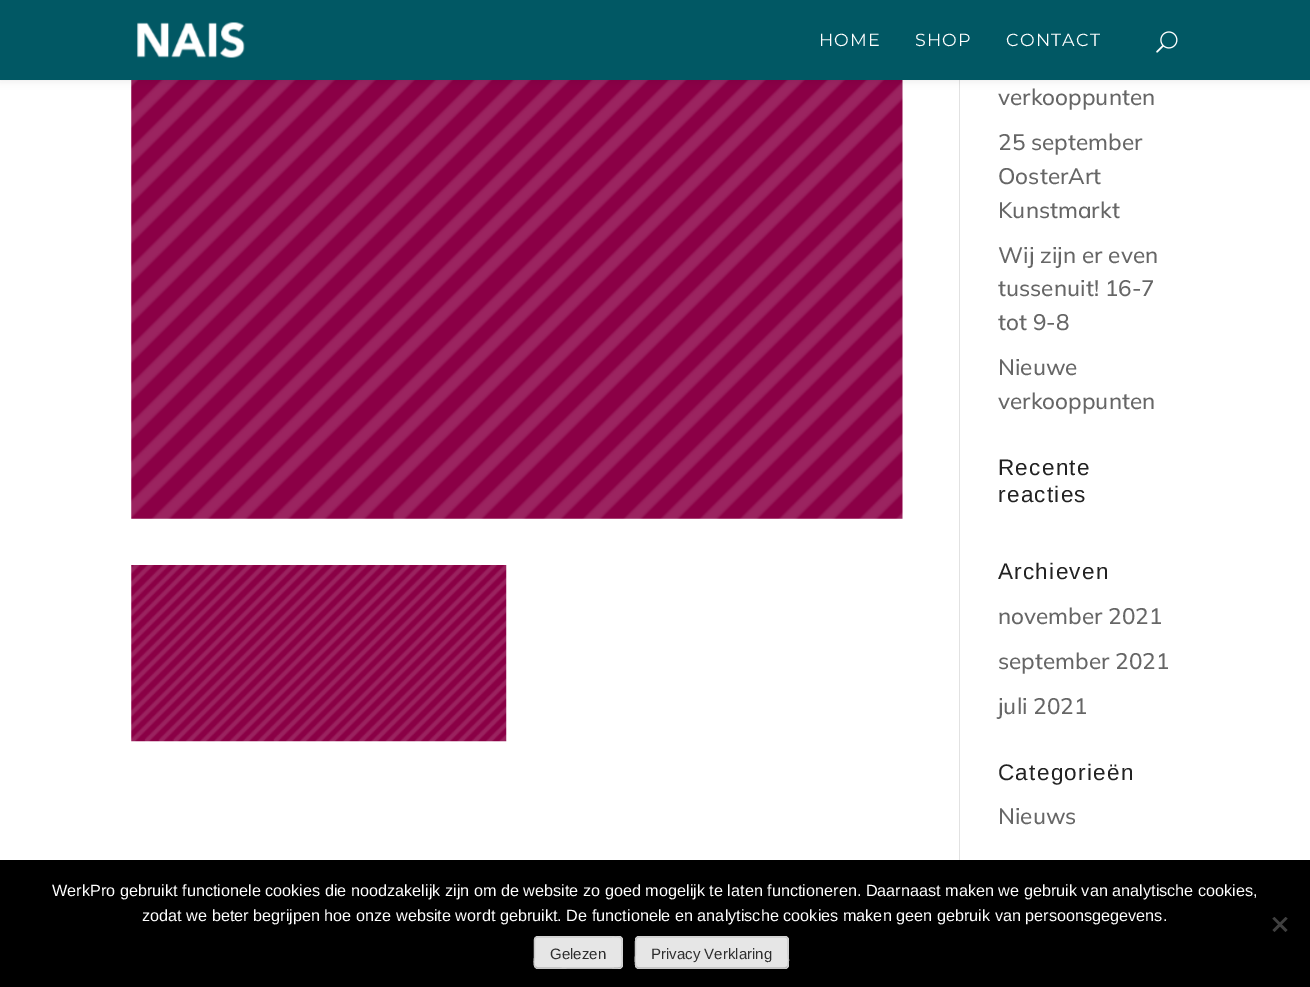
%!PS-Adobe-3.0
%%BoundingBox: 0 0 1310 987
%%LanguageLevel: 3
%%Pages: 1
%%EndComments
%%BeginProlog
/m { moveto } bind def
/l { lineto } bind def
/c { curveto } bind def
/h { closepath } bind def
/f { fill } bind def
/S { stroke } bind def
/w { setlinewidth } bind def
/fn { [ exch dup neg 0 0 3 -1 roll 0 0 ] selectfont } def
/tx { moveto show } def
/bx { rectfill } def
/al { dup .setfillconstantalpha .setstrokeconstantalpha } def
/rr { 5 dict begin { /r /h /w /y /x } { exch def } forall
  x r add y moveto x w add y 2 copy h add r arct x w add y h add x 1 index r arct
  x y h add x y r arct x y 2 copy exch w add exch r arct closepath end } def
/sh { 12 dict begin { /a /b /q /h /w /y /x } { exch def } forall gsave /was 0 def
  9 -2 -9 { dup b mul 4 div /e exch def 1 sub .425 mul 2.718 exch exp 1 add a .99 .min exch div /now exch def
    1 1 now sub 1 was sub div sub al /was now def
    w h .min e 2 mul add 0 gt { x e sub y e sub w e 2 mul add h e 2 mul add
      q e add b .6 mul add w h .min 2 div e add .min 0 .max rr fill } if } for grestore end } def
/im { 5 dict begin { /h /w /y /x /name } { exch def } forall
  gsave x y translate w h scale
  w h 8 [w 0 0 h 0 0] name (r) file false 3 colorimage grestore end } def
%%EndProlog
%%BeginSetup
<< /PageSize [1310 987] /PageUsesTransparency true >> setpagedevice
%%EndSetup
%%Page: 1 1
0 .pushpdf14devicefilter
0 987 translate 1 -1 scale
4 setmiterlimit
1 setgray
0 0 1310 987 bx
0.886 setgray
959 80 1 780 bx
(image2.raw) 131 80 772 439 im
0 setgray
0 0 1310 80 0 4.5 0.1 sh
0.004 0.345 0.392 setrgbcolor
0 0 1310 80 bx
(image0.raw) 137 22 108 36 im
/Montserrat-Regular 17.5 fn
1 setgray
819 46 m 1.25 0 (HOME) ashow
915 46 m 1.25 0 (SHOP) ashow
1006 46 m 1.25 0 (CONTACT) ashow
(image1.raw) 1156 31 22 22 im
(image3.raw) 131 565 376 177 im
/Mulish-Medium 22.5 fn
0.4 setgray
(verkooppunten) 998 105 tx
(25 september) 998 150 tx
(OosterArt) 998 184 tx
(Kunstmarkt) 998 218 tx
(Wij zijn er even) 998 263 tx
(tussenuit! 16-7) 998 296 tx
(tot 9-8) 998 330 tx
(Nieuwe) 998 375 tx
(verkooppunten) 998 409 tx
/LiberationSans-Regular 22.5 fn
0.133 setgray
998 475 m 1.25 0 (Recente) ashow
998 502 m 1.25 0 (reacties) ashow
998 579 m 1.25 0 (Archieven) ashow
/Mulish-Medium 22.5 fn
0.4 setgray
(november 2021) 998 624 tx
(september 2021) 998 669 tx
(juli 2021) 998 714 tx
/LiberationSans-Regular 22.5 fn
0.133 setgray
998 780 m 1.25 0 (Categorieën) ashow
/Mulish-Medium 22.5 fn
0.4 setgray
(Nieuws) 998 824 tx
0 setgray
0 860 1310 127 bx
/LiberationSans-Regular 16.25 fn
1 setgray
(WerkPro gebruikt functionele cookies die noodzakelijk zijn om de website zo goed mogelijk te laten functioneren. Daarnaast maken we gebruik van analytische cookies,) 52 896 tx
(zodat we beter begrijpen hoe onze website wordt gebruikt. De functionele en analytische cookies maken geen gebruik van persoonsgegevens.) 142 921 tx
0.251 setgray
1285.5 917 m 1287.5 918.5 l 1274.5 932 l 1272.5 930 l h f
1272.5 918.5 m 1274.5 917 l 1287.5 930 l 1285.5 932 l h f
0.902 setgray
534 936 89 33 4 rr f
0.733 setgray
1.2 w
621 967 m 620.5 967.5 l 618.5 969 558.5 968 551 968 c 537.5 968 l 535.5 967 l S
0.8 setgray
535.5 967 m 533 965 534.5 959 534.5 956.5 c 534.5 944 l 534.5 942 533.5 937 537.5 937 c 605 937 l 625 937 622 934 622 952.5 c 622 955.5 623 965 621 967 c S
/LiberationSans-Regular 15 fn
0.18 setgray
(Gelezen) 550 959 tx
0.902 setgray
635 936 154 33 4 rr f
0.733 setgray
787 967 m 785 968 l 638.5 968 l 636.5 967 l S
0.8 setgray
636.5 967 m 634.5 965 635.5 955.5 635.5 952.5 c 635.5 944 l 635.5 942 635 937 639 937 c 785 937 l 789 937 788 942 788 944 c 788 952.5 l 788 955.5 789.5 965 787 967 c S
0.18 setgray
(Privacy Verklaring) 651 959 tx
.poppdf14devicefilter showpage
%%EOF
